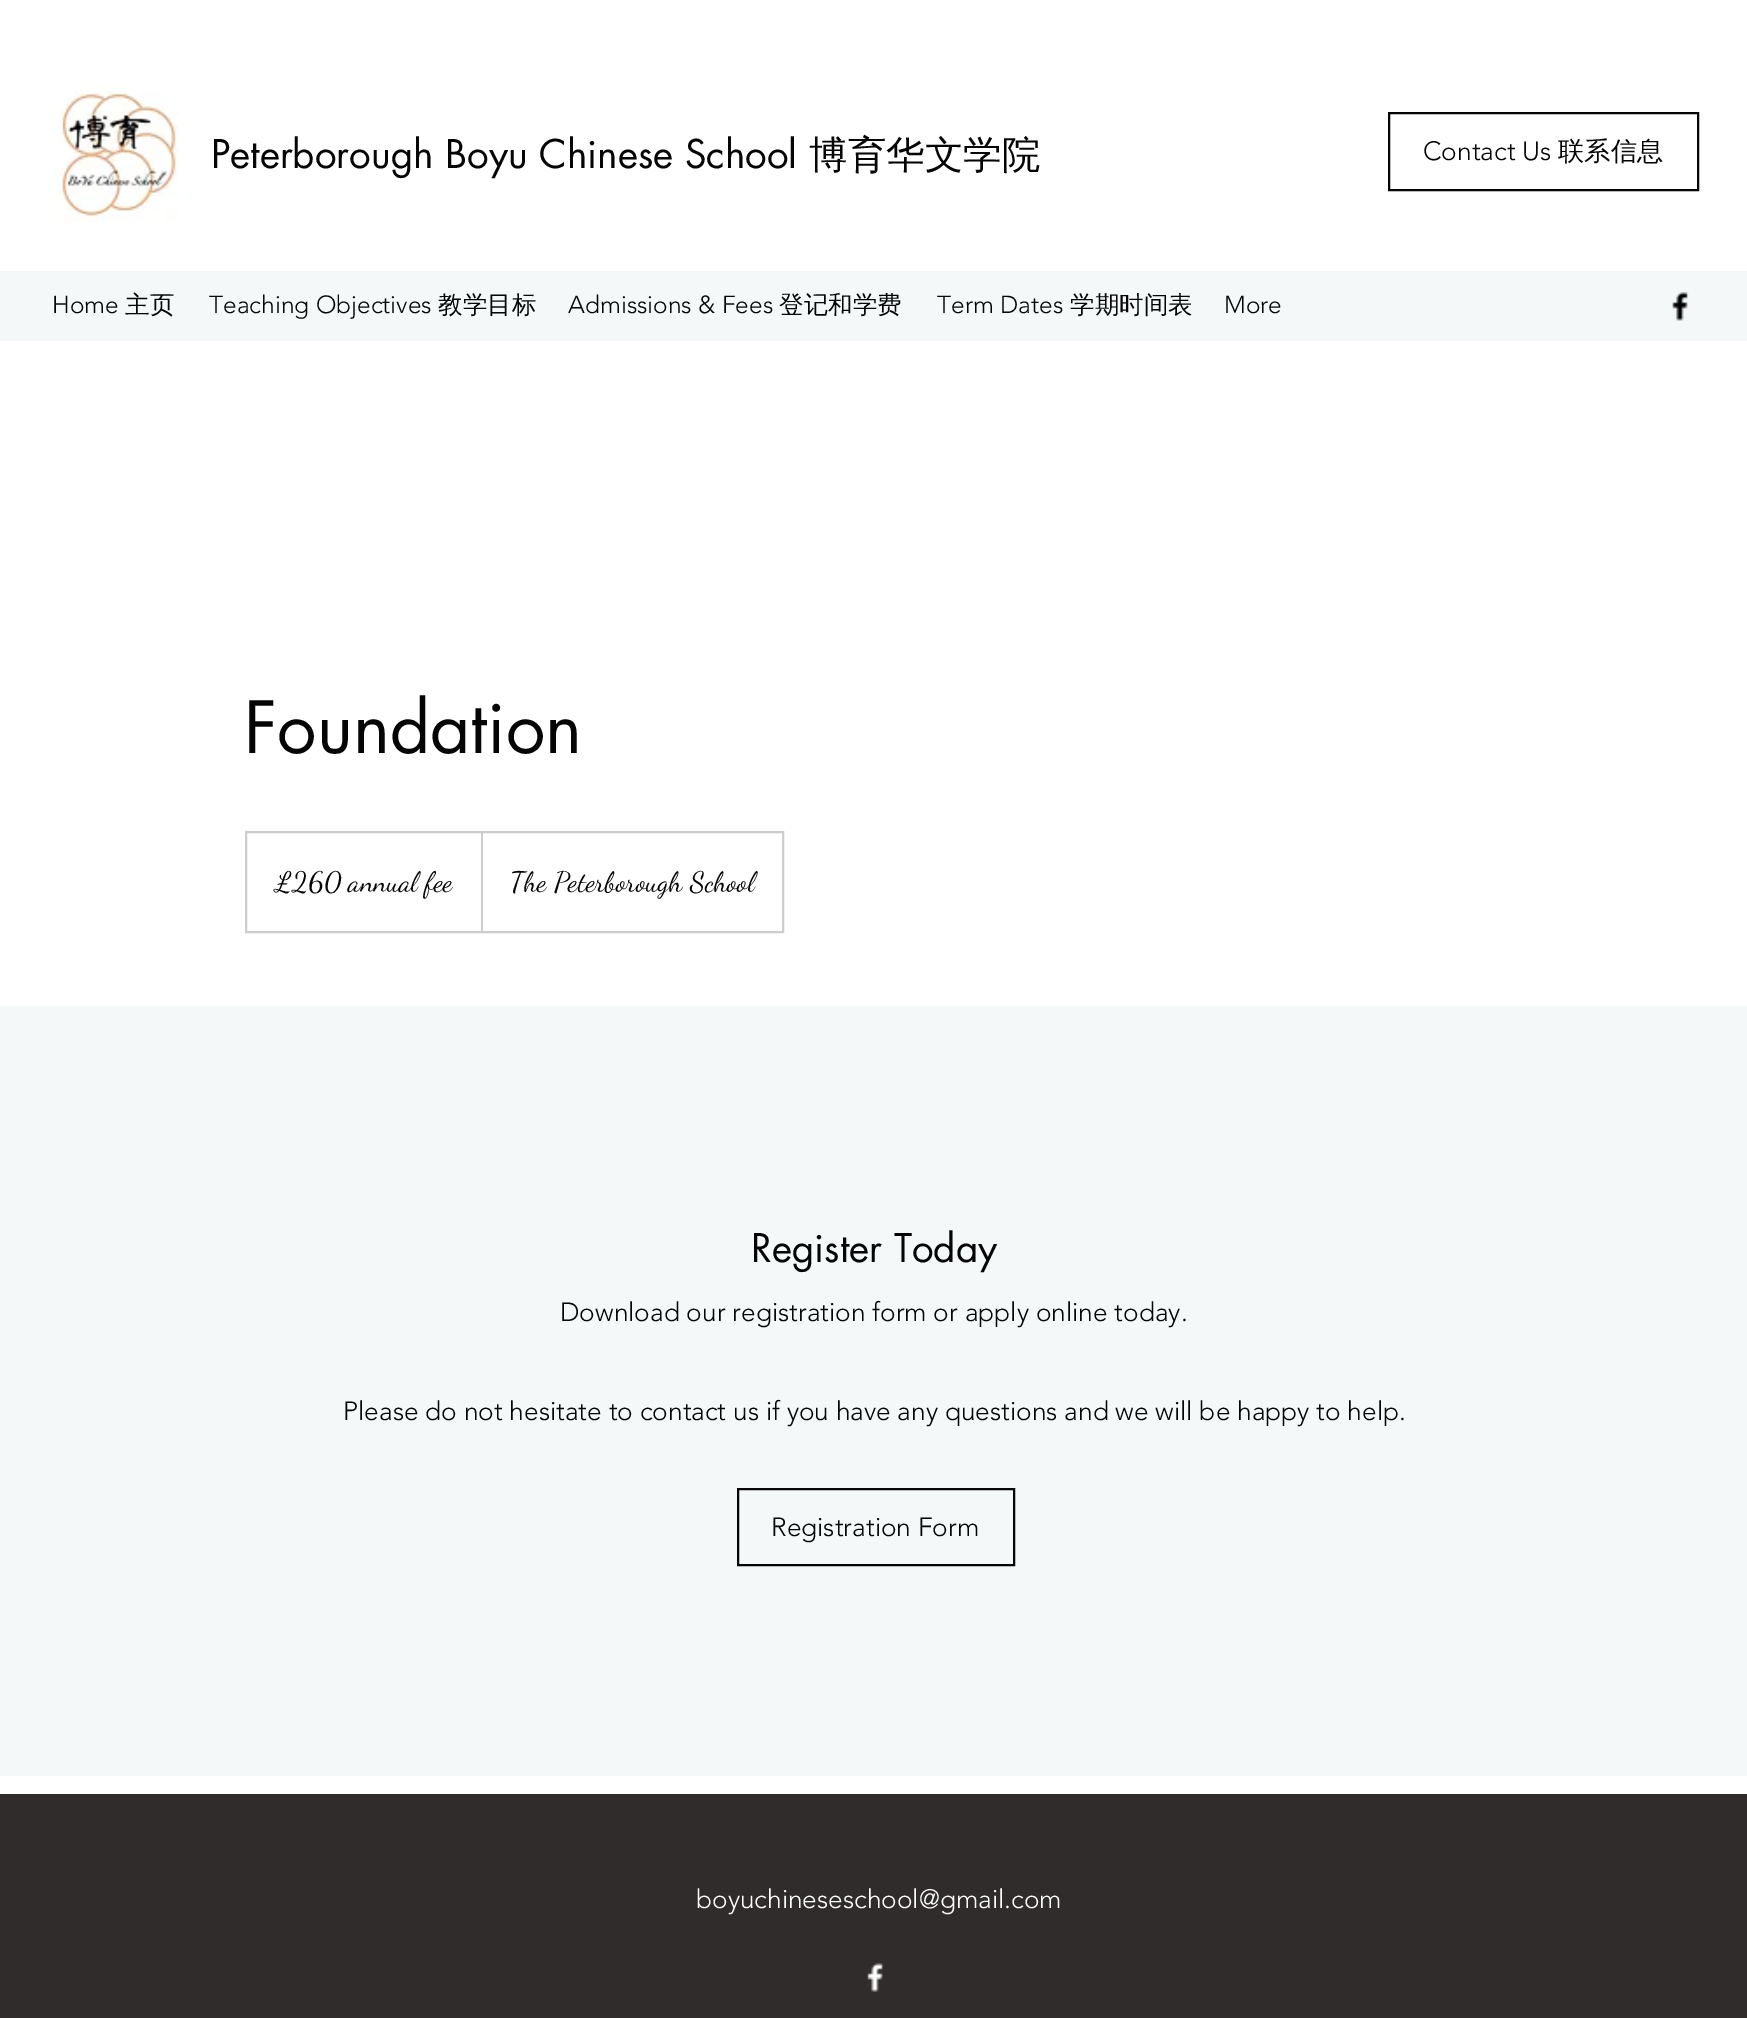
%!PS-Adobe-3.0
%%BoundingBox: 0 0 1747 2018
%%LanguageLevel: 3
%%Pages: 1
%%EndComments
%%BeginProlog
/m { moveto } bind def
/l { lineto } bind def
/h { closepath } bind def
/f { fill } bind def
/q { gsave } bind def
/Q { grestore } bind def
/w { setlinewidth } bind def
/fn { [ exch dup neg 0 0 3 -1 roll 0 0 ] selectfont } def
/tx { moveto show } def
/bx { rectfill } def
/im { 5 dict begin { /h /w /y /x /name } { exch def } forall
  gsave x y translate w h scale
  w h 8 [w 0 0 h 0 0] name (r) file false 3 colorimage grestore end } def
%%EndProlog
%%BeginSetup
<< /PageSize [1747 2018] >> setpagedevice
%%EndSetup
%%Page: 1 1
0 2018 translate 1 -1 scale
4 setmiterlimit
1 setgray
0 0 1747 2018 bx
(image0.raw) 52 84 127 138 im
/futura-Regular 38.5 fn
0.02 setgray
(Peterborough Boyu Chinese School) 211 168 tx
/WenQuanYiZenHei-Medium 38.5 fn
(博育华文学院) 809 168 tx
2 w
1389 113 309 77 rectstroke
/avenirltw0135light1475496-Light 26.25 fn
(Contact Us) 1423 160 tx
/WenQuanYiZenHei-Medium 26.25 fn
(联系信息) 1558 160 tx
0.957 0.973 0.973 setrgbcolor
0 271 1747 70 bx
/avenirltw0135light1475496-Light 24.5 fn
0.02 setgray
(Home) 52 313 tx
/WenQuanYiZenHei-Medium 24.5 fn
(主页) 125 313 tx
/avenirltw0135light1475496-Light 24.5 fn
(Teaching Objectives) 209 313 tx
/WenQuanYiZenHei-Medium 24.5 fn
(教学目标) 438 313 tx
/avenirltw0135light1475496-Light 24.5 fn
(Admissions & Fees) 568 313 tx
/WenQuanYiZenHei-Medium 24.5 fn
(登记和学费) 779 313 tx
/avenirltw0135light1475496-Light 24.5 fn
(Term Dates) 937 313 tx
/WenQuanYiZenHei-Medium 24.5 fn
(学期时间表) 1070 313 tx
/avenirltw0135light1475496-Light 24.5 fn
(More) 1224 313 tx
(image1.raw) 1672 291 17 30 im
/futura-Regular 70 fn
(Foundation) 244 753 tx
0.804 setgray
246 832 537 100 rectstroke
/DancingScript-Regular 28 fn
0.02 setgray
(£260 annual fee) 274 891 tx
q
247 833 535 98 rectclip
0.804 setgray
481 931 m 481 831 l 483 833 l 483 931 l h f
Q
(The Peterborough School) 510 891 tx
0.957 0.973 0.973 setrgbcolor
0 1006 1747 770 bx
/futura-Regular 38.5 fn
0.02 setgray
(Register Today) 751 1262 tx
/avenirltw0135light1475496-Light 26.25 fn
(Download our registration form or apply online today.) 560 1321 tx
(Please do not hesitate to contact us if you have any questions and we will be happy to help.) 343 1420 tx
738 1489 276 76 rectstroke
(Registration Form) 771 1536 tx
0.184 0.173 0.169 setrgbcolor
0 1794 1747 224 bx
1 setgray
(boyuchineseschool@gmail.com) 696 1908 tx
(image2.raw) 867 1963 17 29 im
showpage
%%EOF
